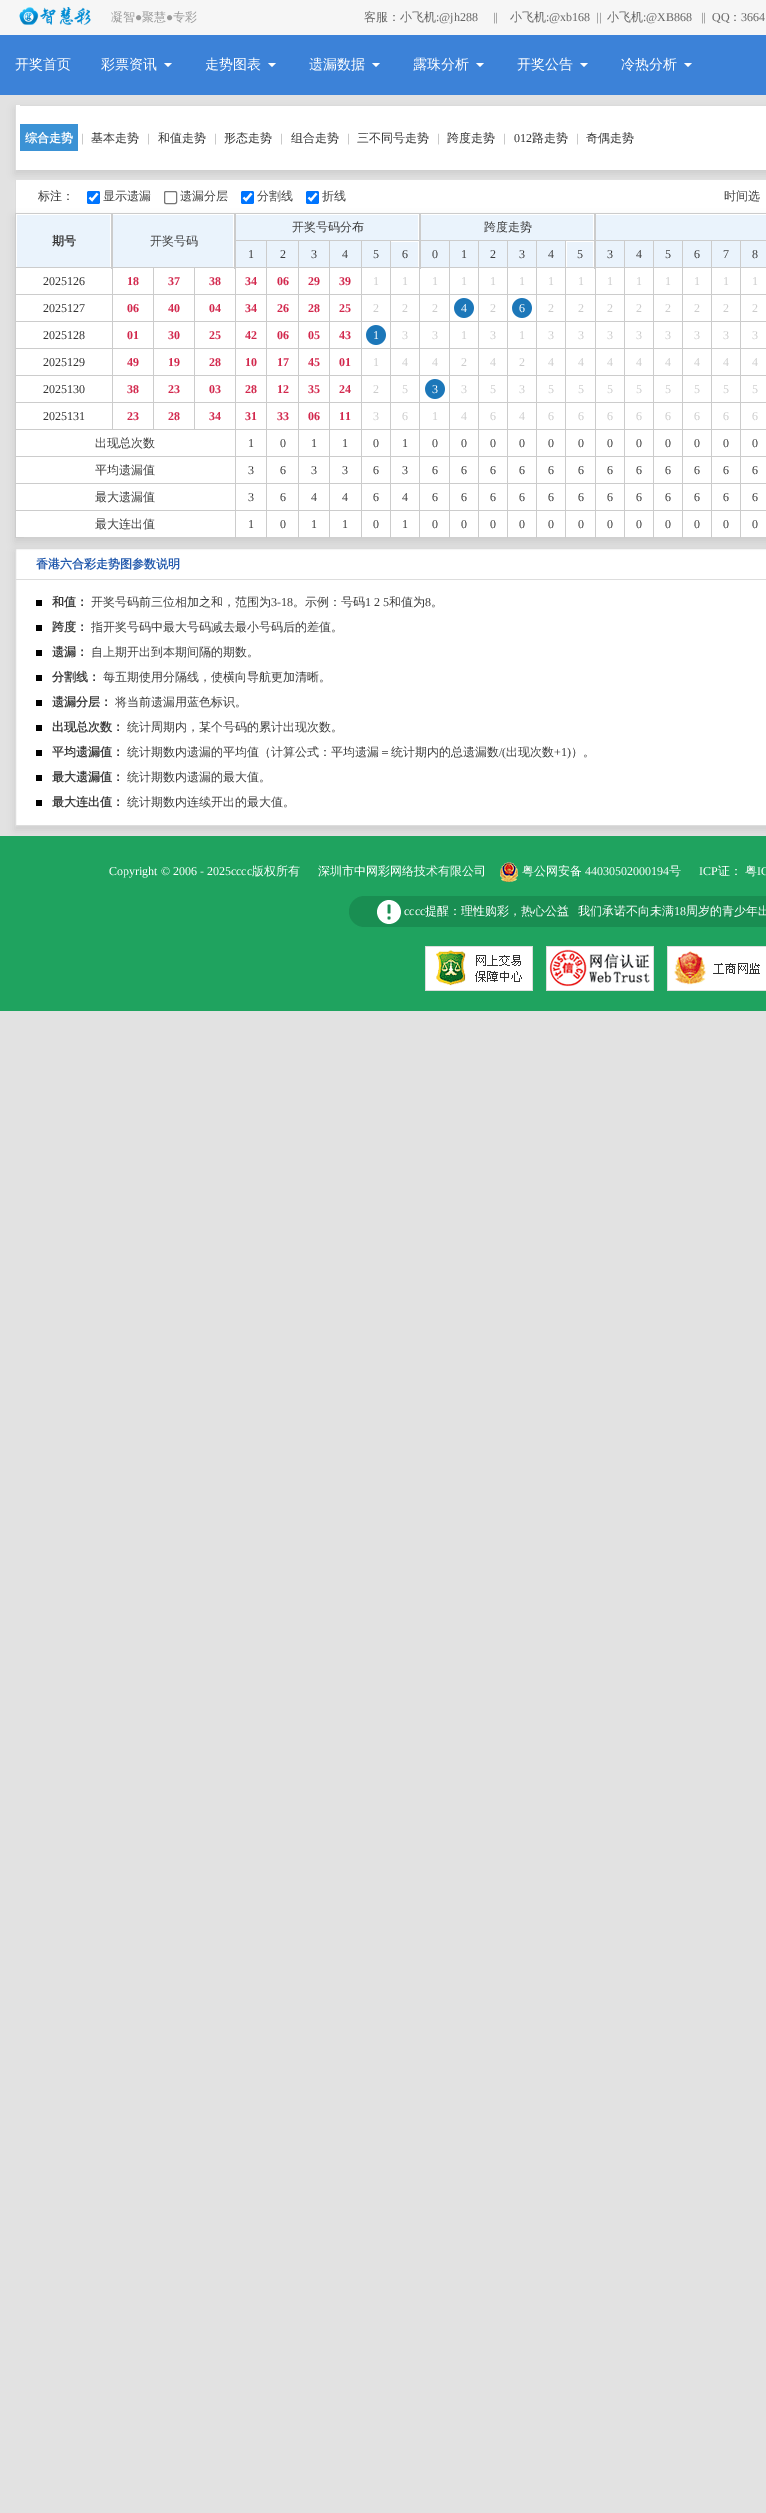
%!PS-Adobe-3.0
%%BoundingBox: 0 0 766 2513
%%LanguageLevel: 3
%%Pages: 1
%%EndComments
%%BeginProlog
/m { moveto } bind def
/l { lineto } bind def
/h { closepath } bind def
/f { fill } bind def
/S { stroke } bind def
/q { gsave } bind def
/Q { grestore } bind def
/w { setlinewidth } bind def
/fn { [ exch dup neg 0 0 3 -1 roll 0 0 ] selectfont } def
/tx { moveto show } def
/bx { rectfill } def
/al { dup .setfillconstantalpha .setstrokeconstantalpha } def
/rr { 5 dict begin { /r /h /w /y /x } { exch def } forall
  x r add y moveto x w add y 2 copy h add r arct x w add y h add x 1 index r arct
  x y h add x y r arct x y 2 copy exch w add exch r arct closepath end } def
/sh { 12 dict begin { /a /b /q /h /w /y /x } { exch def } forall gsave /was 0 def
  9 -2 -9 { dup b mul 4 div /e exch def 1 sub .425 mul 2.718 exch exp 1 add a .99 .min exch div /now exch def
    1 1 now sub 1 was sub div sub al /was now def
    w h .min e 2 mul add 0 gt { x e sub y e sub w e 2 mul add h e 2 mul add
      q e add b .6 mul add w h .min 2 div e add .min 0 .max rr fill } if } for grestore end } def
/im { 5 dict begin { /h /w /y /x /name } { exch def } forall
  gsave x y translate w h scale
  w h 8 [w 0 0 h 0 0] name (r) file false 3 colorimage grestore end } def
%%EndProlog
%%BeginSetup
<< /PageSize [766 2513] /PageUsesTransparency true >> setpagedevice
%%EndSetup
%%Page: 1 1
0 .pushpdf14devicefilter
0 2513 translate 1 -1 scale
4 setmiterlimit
0.886 setgray
0 0 766 2513 bx
0.965 setgray
0 0 766 35 bx
(image0.raw) 19 7 72 18 im
/WenQuanYiZenHei-Medium 12 fn
0.6 setgray
(凝智) 111 21 tx
/LiberationSerif-Regular 12 fn
(●) 135 21 tx
/WenQuanYiZenHei-Medium 12 fn
(聚慧) 142 21 tx
/LiberationSerif-Regular 12 fn
(●) 166 21 tx
/WenQuanYiZenHei-Medium 12 fn
(专彩) 173 21 tx
0.4 setgray
(客服：小飞机) 364 21 tx
/LiberationSerif-Regular 12 fn
(:@jh288     ||) 436 21 tx
/WenQuanYiZenHei-Medium 12 fn
(小飞机) 510 21 tx
/LiberationSerif-Regular 12 fn
(:@xb168  ||) 546 21 tx
/WenQuanYiZenHei-Medium 12 fn
(小飞机) 607 21 tx
/LiberationSerif-Regular 12 fn
(:@XB868   ||) 643 21 tx
(QQ) 712 21 tx
/WenQuanYiZenHei-Medium 12 fn
(：) 729 21 tx
/LiberationSerif-Regular 12 fn
(3664) 741 21 tx
0.235 0.51 0.847 setrgbcolor
0 35 766 60 bx
/WenQuanYiZenHei-Medium 14 fn
1 setgray
(开奖首页) 15 69 tx
(彩票资讯) 101 69 tx
164 63 m 172 63 l 168 67 l h f
(走势图表) 205 69 tx
268 63 m 276 63 l 272 67 l h f
(遗漏数据) 309 69 tx
372 63 m 380 63 l 376 67 l h f
(露珠分析) 413 69 tx
476 63 m 484 63 l 480 67 l h f
(开奖公告) 517 69 tx
580 63 m 588 63 l 584 67 l h f
(冷热分析) 621 69 tx
684 63 m 692 63 l 688 67 l h f
0 setgray
15 109 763 65 0 4 0.1 sh
1 setgray
16 105 750 65 bx
0.867 setgray
15 105 1 65 bx
0.859 setgray
20 105 746 1 bx
0.231 0.573 0.835 setrgbcolor
20 124 58 27 bx
/WenQuanYiZenHei-Bold 12 fn
1 setgray
(综合走势) 25 142 tx
/LiberationSerif-Regular 12 fn
0.6 setgray
(|) 81 142 tx
/WenQuanYiZenHei-Medium 12 fn
0.2 setgray
(基本走势) 91 142 tx
/LiberationSerif-Regular 12 fn
0.6 setgray
(|) 147 142 tx
/WenQuanYiZenHei-Medium 12 fn
0.2 setgray
(和值走势) 158 142 tx
/LiberationSerif-Regular 12 fn
0.6 setgray
(|) 214 142 tx
/WenQuanYiZenHei-Medium 12 fn
0.2 setgray
(形态走势) 224 142 tx
/LiberationSerif-Regular 12 fn
0.6 setgray
(|) 280 142 tx
/WenQuanYiZenHei-Medium 12 fn
0.2 setgray
(组合走势) 291 142 tx
/LiberationSerif-Regular 12 fn
0.6 setgray
(|) 347 142 tx
/WenQuanYiZenHei-Medium 12 fn
0.2 setgray
(三不同号走势) 357 142 tx
/LiberationSerif-Regular 12 fn
0.6 setgray
(|) 437 142 tx
/WenQuanYiZenHei-Medium 12 fn
0.2 setgray
(跨度走势) 447 142 tx
/LiberationSerif-Regular 12 fn
0.6 setgray
(|) 503 142 tx
0.2 setgray
(012) 514 142 tx
/WenQuanYiZenHei-Medium 12 fn
(路走势) 532 142 tx
/LiberationSerif-Regular 12 fn
0.6 setgray
(|) 576 142 tx
/WenQuanYiZenHei-Medium 12 fn
0.2 setgray
(奇偶走势) 586 142 tx
1 setgray
16 180 750 33 bx
0.867 setgray
15 180 1 33 bx
0.235 setgray
(标注：) 38 200 tx
0 0.459 1 setrgbcolor
87 191 13 13 2 rr f
1 setgray
2.1 w
89.5 197.5 m 92 200 l 97.5 193.5 l S
0.235 setgray
(显示遗漏) 103 200 tx
0.463 setgray
1 w
164.5 191.5 12 12 1.5 rr S
0.235 setgray
(遗漏分层) 180 200 tx
0 0.459 1 setrgbcolor
241 191 13 13 2 rr f
1 setgray
2.1 w
243.5 197.5 m 246 200 l 251.5 193.5 l S
0.235 setgray
(分割线) 257 200 tx
0 0.459 1 setrgbcolor
306 191 13 13 2 rr f
1 setgray
308.5 197.5 m 311 200 l 316.5 193.5 l S
0.235 setgray
(折线) 322 200 tx
(时间选) 724 200 tx
0 setgray
15 552 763 278 0 4 0.1 sh
1 setgray
15.5 548.5 m 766.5 548.5 l 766.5 825.5 l 15.5 825.5 l h q f Q
0.867 setgray
1 w
S
0 setgray
15 217 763 325 0 4 0.1 sh
1 setgray
16 214 750 323 bx
0.918 0.953 0.988 setrgbcolor
596 215 170 25 bx
0.8 setgray
15 213 751 1 bx
0.918 0.953 0.988 setrgbcolor
236 215 182 25 bx
0.235 setgray
(开奖号码分布) 292 231 tx
0.918 0.953 0.988 setrgbcolor
421 215 172 25 bx
0.235 setgray
(跨度走势) 484 231 tx
0.918 0.953 0.988 setrgbcolor
17 215 93 52 bx
0.8 setgray
15 267 751 1 bx
15 294 751 1 bx
15 321 751 1 bx
15 348 751 1 bx
15 375 751 1 bx
15 402 751 1 bx
15 429 751 1 bx
15 456 751 1 bx
15 483 751 1 bx
15 510 751 1 bx
15 537 9 1 bx
15 510 1 28 bx
15 483 1 28 bx
15 456 1 28 bx
15 429 1 28 bx
15 402 1 28 bx
15 375 1 28 bx
15 348 1 28 bx
15 321 1 28 bx
15 294 1 28 bx
15 267 1 28 bx
15 213 1 55 bx
112 267 1 163 bx
111 213 2 56 bx
/WenQuanYiZenHei-Bold 12 fn
0.235 setgray
(期号) 52 245 tx
0.918 0.953 0.988 setrgbcolor
113 215 120 52 bx
0.8 setgray
740 240 26 1 bx
740 267 1 271 bx
740 240 1 28 bx
711 240 30 1 bx
711 267 1 271 bx
711 240 1 28 bx
682 240 30 1 bx
682 267 1 271 bx
682 240 1 28 bx
653 240 30 1 bx
653 267 1 271 bx
653 240 1 28 bx
624 240 30 1 bx
624 267 1 271 bx
624 240 1 28 bx
565 240 60 1 bx
565 267 1 271 bx
565 240 1 28 bx
536 240 30 1 bx
536 267 1 271 bx
536 240 1 28 bx
507 240 30 1 bx
507 267 1 271 bx
507 240 1 28 bx
478 240 30 1 bx
478 267 1 271 bx
478 240 1 28 bx
449 240 30 1 bx
449 267 1 271 bx
449 240 1 28 bx
390 240 60 1 bx
390 267 1 271 bx
390 240 1 28 bx
361 240 30 1 bx
361 267 1 271 bx
361 240 1 28 bx
329 240 33 1 bx
329 267 1 271 bx
329 240 1 28 bx
298 240 32 1 bx
298 267 1 271 bx
298 240 1 28 bx
266 240 33 1 bx
266 267 1 271 bx
266 240 1 28 bx
235 240 32 1 bx
235 267 1 271 bx
234 213 2 56 bx
/WenQuanYiZenHei-Medium 12 fn
0.235 setgray
(开奖号码) 150 245 tx
0.918 0.953 0.988 setrgbcolor
236 241 30 26 bx
/LiberationSerif-Regular 12 fn
0.235 setgray
(1) 248 258 tx
0.918 0.953 0.988 setrgbcolor
267 241 31 26 bx
0.235 setgray
(2) 280 258 tx
0.918 0.953 0.988 setrgbcolor
299 241 30 26 bx
0.235 setgray
(3) 311 258 tx
0.918 0.953 0.988 setrgbcolor
330 241 31 26 bx
0.235 setgray
(4) 342 258 tx
0.918 0.953 0.988 setrgbcolor
362 241 28 26 bx
0.235 setgray
(5) 373 258 tx
0.918 0.953 0.988 setrgbcolor
391 242 27 25 bx
0.8 setgray
419 267 1 271 bx
419 213 2 56 bx
0.235 setgray
(6) 402 258 tx
0.918 0.953 0.988 setrgbcolor
421 241 28 26 bx
0.235 setgray
(0) 432 258 tx
0.918 0.953 0.988 setrgbcolor
450 241 28 26 bx
0.235 setgray
(1) 461 258 tx
0.918 0.953 0.988 setrgbcolor
479 241 28 26 bx
0.235 setgray
(2) 490 258 tx
0.918 0.953 0.988 setrgbcolor
508 241 28 26 bx
0.235 setgray
(3) 519 258 tx
0.918 0.953 0.988 setrgbcolor
537 241 28 26 bx
0.235 setgray
(4) 548 258 tx
0.918 0.953 0.988 setrgbcolor
567 242 26 25 bx
0.8 setgray
595 267 1 271 bx
594 213 2 56 bx
0.235 setgray
(5) 577 258 tx
0.918 0.953 0.988 setrgbcolor
596 241 28 26 bx
0.235 setgray
(3) 607 258 tx
0.918 0.953 0.988 setrgbcolor
625 241 28 26 bx
0.235 setgray
(4) 636 258 tx
0.918 0.953 0.988 setrgbcolor
654 241 28 26 bx
0.235 setgray
(5) 665 258 tx
0.918 0.953 0.988 setrgbcolor
683 241 28 26 bx
0.235 setgray
(6) 694 258 tx
0.918 0.953 0.988 setrgbcolor
712 241 28 26 bx
0.235 setgray
(7) 723 258 tx
0.918 0.953 0.988 setrgbcolor
741 241 25 26 bx
0.235 setgray
(8) 752 258 tx
0.2 setgray
(2025126) 43 285 tx
/LiberationSerif-Bold 12 fn
0.824 0.157 0.302 setrgbcolor
(18) 127 285 tx
(37) 168 285 tx
(38) 209 285 tx
(34) 245 285 tx
(06) 277 285 tx
(29) 308 285 tx
(39) 339 285 tx
/LiberationSerif-Regular 12 fn
0.8 setgray
(1) 373 285 tx
(1) 402 285 tx
(1) 432 285 tx
(1) 461 285 tx
(1) 490 285 tx
(1) 519 285 tx
(1) 548 285 tx
(1) 578 285 tx
(1) 607 285 tx
(1) 636 285 tx
(1) 665 285 tx
(1) 694 285 tx
(1) 723 285 tx
(1) 752 285 tx
0.2 setgray
(2025127) 43 312 tx
/LiberationSerif-Bold 12 fn
0.824 0.157 0.302 setrgbcolor
(06) 127 312 tx
(40) 168 312 tx
(04) 209 312 tx
(34) 245 312 tx
(26) 277 312 tx
(28) 308 312 tx
(25) 339 312 tx
/LiberationSerif-Regular 12 fn
0.8 setgray
(2) 373 312 tx
(2) 402 312 tx
(2) 432 312 tx
(image1.raw) 454 298 20 20 im
1 setgray
(4) 461 312 tx
0.8 setgray
(2) 490 312 tx
(image1.raw) 512 298 20 20 im
1 setgray
(6) 519 312 tx
0.8 setgray
(2) 548 312 tx
(2) 578 312 tx
(2) 607 312 tx
(2) 636 312 tx
(2) 665 312 tx
(2) 694 312 tx
(2) 723 312 tx
(2) 752 312 tx
0.2 setgray
(2025128) 43 339 tx
/LiberationSerif-Bold 12 fn
0.824 0.157 0.302 setrgbcolor
(01) 127 339 tx
(30) 168 339 tx
(25) 209 339 tx
(42) 245 339 tx
(06) 277 339 tx
(05) 308 339 tx
(43) 339 339 tx
(image1.raw) 366 325 20 20 im
/LiberationSerif-Regular 12 fn
1 setgray
(1) 373 339 tx
0.8 setgray
(3) 402 339 tx
(3) 432 339 tx
(1) 461 339 tx
(3) 490 339 tx
(1) 519 339 tx
(3) 548 339 tx
(3) 578 339 tx
(3) 607 339 tx
(3) 636 339 tx
(3) 665 339 tx
(3) 694 339 tx
(3) 723 339 tx
(3) 752 339 tx
0.2 setgray
(2025129) 43 366 tx
/LiberationSerif-Bold 12 fn
0.824 0.157 0.302 setrgbcolor
(49) 127 366 tx
(19) 168 366 tx
(28) 209 366 tx
(10) 245 366 tx
(17) 277 366 tx
(45) 308 366 tx
(01) 339 366 tx
/LiberationSerif-Regular 12 fn
0.8 setgray
(1) 373 366 tx
(4) 402 366 tx
(4) 432 366 tx
(2) 461 366 tx
(4) 490 366 tx
(2) 519 366 tx
(4) 548 366 tx
(4) 578 366 tx
(4) 607 366 tx
(4) 636 366 tx
(4) 665 366 tx
(4) 694 366 tx
(4) 723 366 tx
(4) 752 366 tx
0.2 setgray
(2025130) 43 393 tx
/LiberationSerif-Bold 12 fn
0.824 0.157 0.302 setrgbcolor
(38) 127 393 tx
(23) 168 393 tx
(03) 209 393 tx
(28) 245 393 tx
(12) 277 393 tx
(35) 308 393 tx
(24) 339 393 tx
/LiberationSerif-Regular 12 fn
0.8 setgray
(2) 373 393 tx
(5) 402 393 tx
(image1.raw) 425 379 20 20 im
1 setgray
(3) 432 393 tx
0.8 setgray
(3) 461 393 tx
(5) 490 393 tx
(3) 519 393 tx
(5) 548 393 tx
(5) 578 393 tx
(5) 607 393 tx
(5) 636 393 tx
(5) 665 393 tx
(5) 694 393 tx
(5) 723 393 tx
(5) 752 393 tx
0.2 setgray
(2025131) 43 420 tx
/LiberationSerif-Bold 12 fn
0.824 0.157 0.302 setrgbcolor
(23) 127 420 tx
0.8 setgray
153 267 1 163 bx
0.824 0.157 0.302 setrgbcolor
(28) 168 420 tx
0.8 setgray
194 267 1 163 bx
0.824 0.157 0.302 setrgbcolor
(34) 209 420 tx
(31) 245 420 tx
(33) 277 420 tx
(06) 308 420 tx
(11) 339 420 tx
/LiberationSerif-Regular 12 fn
0.8 setgray
(3) 373 420 tx
(6) 402 420 tx
(1) 432 420 tx
(4) 461 420 tx
(6) 490 420 tx
(4) 519 420 tx
(6) 548 420 tx
(6) 578 420 tx
(6) 607 420 tx
(6) 636 420 tx
(6) 665 420 tx
(6) 694 420 tx
(6) 723 420 tx
(6) 752 420 tx
/WenQuanYiZenHei-Medium 12 fn
0.235 setgray
(出现总次数) 95 447 tx
/LiberationSerif-Regular 12 fn
(1) 248 447 tx
(0) 280 447 tx
(1) 311 447 tx
(1) 342 447 tx
(0) 373 447 tx
(1) 402 447 tx
(0) 432 447 tx
(0) 461 447 tx
(0) 490 447 tx
(0) 519 447 tx
(0) 548 447 tx
(0) 578 447 tx
(0) 607 447 tx
(0) 636 447 tx
(0) 665 447 tx
(0) 694 447 tx
(0) 723 447 tx
(0) 752 447 tx
/WenQuanYiZenHei-Medium 12 fn
(平均遗漏值) 95 474 tx
/LiberationSerif-Regular 12 fn
(3) 248 474 tx
(6) 280 474 tx
(3) 311 474 tx
(3) 342 474 tx
(6) 373 474 tx
(3) 402 474 tx
(6) 432 474 tx
(6) 461 474 tx
(6) 490 474 tx
(6) 519 474 tx
(6) 548 474 tx
(6) 578 474 tx
(6) 607 474 tx
(6) 636 474 tx
(6) 665 474 tx
(6) 694 474 tx
(6) 723 474 tx
(6) 752 474 tx
/WenQuanYiZenHei-Medium 12 fn
(最大遗漏值) 95 501 tx
/LiberationSerif-Regular 12 fn
(3) 248 501 tx
(6) 280 501 tx
(4) 311 501 tx
(4) 342 501 tx
(6) 373 501 tx
(4) 402 501 tx
(6) 432 501 tx
(6) 461 501 tx
(6) 490 501 tx
(6) 519 501 tx
(6) 548 501 tx
(6) 578 501 tx
(6) 607 501 tx
(6) 636 501 tx
(6) 665 501 tx
(6) 694 501 tx
(6) 723 501 tx
(6) 752 501 tx
/WenQuanYiZenHei-Medium 12 fn
(最大连出值) 95 528 tx
/LiberationSerif-Regular 12 fn
(1) 248 528 tx
(0) 280 528 tx
(1) 311 528 tx
(1) 342 528 tx
(0) 373 528 tx
(1) 402 528 tx
(0) 432 528 tx
(0) 461 528 tx
(0) 490 528 tx
(0) 519 528 tx
(0) 548 528 tx
(0) 578 528 tx
(0) 607 528 tx
(0) 636 528 tx
(0) 665 528 tx
(0) 694 528 tx
(0) 723 528 tx
(0) 752 528 tx
0.867 setgray
16 579 750 1 bx
/WenQuanYiZenHei-Bold 12 fn
0.137 0.353 0.678 setrgbcolor
(香港六合彩走势图参数说明) 36 568 tx
0 setgray
36 600 6 6 bx
0.235 setgray
(和值：) 52 606 tx
/WenQuanYiZenHei-Medium 12 fn
(开奖号码前三位相加之和，范围为) 91 606 tx
/LiberationSerif-Regular 12 fn
(3-18) 271 606 tx
/WenQuanYiZenHei-Medium 12 fn
(。示例：号码) 293 606 tx
/LiberationSerif-Regular 12 fn
(1 2 5) 365 606 tx
/WenQuanYiZenHei-Medium 12 fn
(和值为) 389 606 tx
/LiberationSerif-Regular 12 fn
(8) 425 606 tx
/WenQuanYiZenHei-Medium 12 fn
(。) 431 606 tx
0 setgray
36 625 6 6 bx
/WenQuanYiZenHei-Bold 12 fn
0.235 setgray
(跨度：) 52 631 tx
/WenQuanYiZenHei-Medium 12 fn
(指开奖号码中最大号码减去最小号码后的差值。) 91 631 tx
0 setgray
36 650 6 6 bx
/WenQuanYiZenHei-Bold 12 fn
0.235 setgray
(遗漏：) 52 656 tx
/WenQuanYiZenHei-Medium 12 fn
(自上期开出到本期间隔的期数。) 91 656 tx
0 setgray
36 675 6 6 bx
/WenQuanYiZenHei-Bold 12 fn
0.235 setgray
(分割线：) 52 681 tx
/WenQuanYiZenHei-Medium 12 fn
(每五期使用分隔线，使横向导航更加清晰。) 103 681 tx
0 setgray
36 700 6 6 bx
/WenQuanYiZenHei-Bold 12 fn
0.235 setgray
(遗漏分层：) 52 706 tx
/WenQuanYiZenHei-Medium 12 fn
(将当前遗漏用蓝色标识。) 115 706 tx
0 setgray
36 725 6 6 bx
/WenQuanYiZenHei-Bold 12 fn
0.235 setgray
(出现总次数：) 52 731 tx
/WenQuanYiZenHei-Medium 12 fn
(统计周期内，某个号码的累计出现次数。) 127 731 tx
0 setgray
36 750 6 6 bx
/WenQuanYiZenHei-Bold 12 fn
0.235 setgray
(平均遗漏值：) 52 756 tx
/WenQuanYiZenHei-Medium 12 fn
(统计期数内遗漏的平均值（计算公式：平均遗漏＝统计期内的总遗漏数) 127 756 tx
/LiberationSerif-Regular 12 fn
(/\() 499 756 tx
/WenQuanYiZenHei-Medium 12 fn
(出现次数) 506 756 tx
/LiberationSerif-Regular 12 fn
(+1\)) 554 756 tx
/WenQuanYiZenHei-Medium 12 fn
(）。) 571 756 tx
0 setgray
36 775 6 6 bx
/WenQuanYiZenHei-Bold 12 fn
0.235 setgray
(最大遗漏值：) 52 781 tx
/WenQuanYiZenHei-Medium 12 fn
(统计期数内遗漏的最大值。) 127 781 tx
0 setgray
36 800 6 6 bx
/WenQuanYiZenHei-Bold 12 fn
0.235 setgray
(最大连出值：) 52 806 tx
/WenQuanYiZenHei-Medium 12 fn
(统计期数内连续开出的最大值。) 127 806 tx
0.122 0.639 0.373 setrgbcolor
0 836 766 175 bx
/LiberationSerif-Regular 12 fn
1 setgray
(Copyright © 2006 - 2025cccc) 109 875 tx
/WenQuanYiZenHei-Medium 12 fn
(版权所有) 252 875 tx
(深圳市中网彩网络技术有限公司) 318 875 tx
(image2.raw) 500 862 18 20 im
(粤公网安备) 522 875 tx
/LiberationSerif-Regular 12 fn
(44030502000194) 585 875 tx
/WenQuanYiZenHei-Medium 12 fn
(号) 669 875 tx
/LiberationSerif-Regular 12 fn
(ICP) 699 875 tx
/WenQuanYiZenHei-Medium 12 fn
(证：) 718 875 tx
(粤) 745 875 tx
/LiberationSerif-Regular 12 fn
(IC) 757 875 tx
0.098 0.557 0.322 setrgbcolor
349 896 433 31 15.5 rr f
(image3.raw) 377 900 24 24 im
1 setgray
(cccc) 404 915 tx
/WenQuanYiZenHei-Medium 12 fn
(提醒：理性购彩，热心公益) 425 915 tx
(我们承诺不向未满) 578 915 tx
/LiberationSerif-Regular 12 fn
(18) 674 915 tx
/WenQuanYiZenHei-Medium 12 fn
(周岁的青少年出) 686 915 tx
(image4.raw) 425 946 108 45 im
(image5.raw) 546 946 108 45 im
(image6.raw) 667 946 99 45 im
.poppdf14devicefilter showpage
%%EOF
